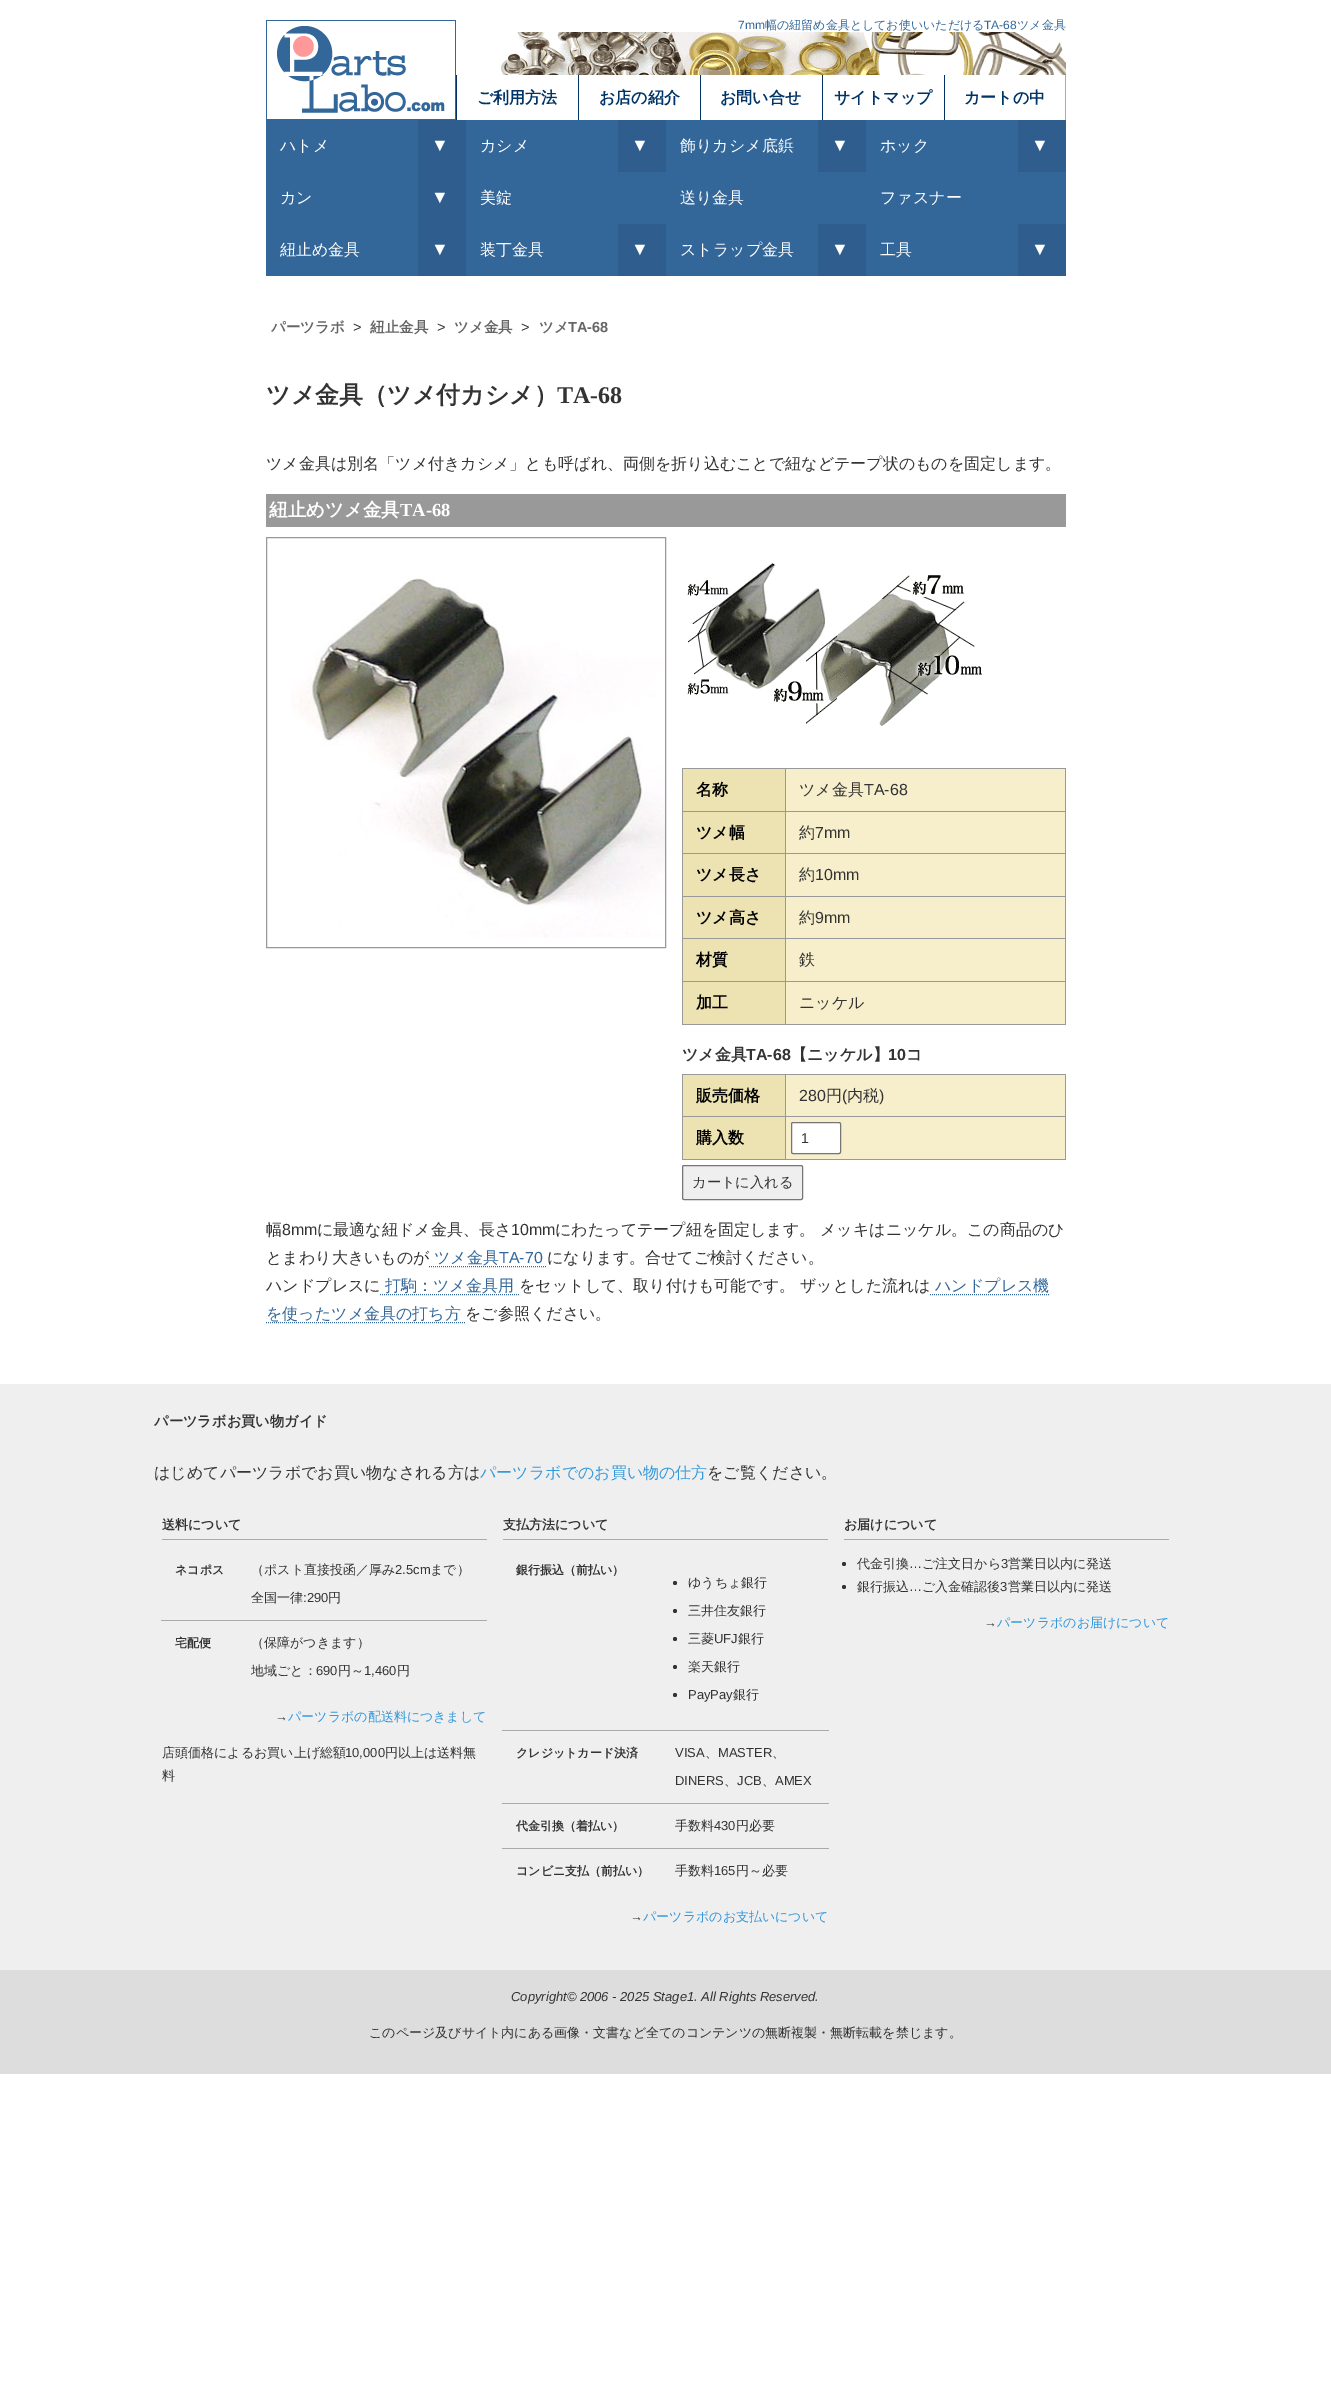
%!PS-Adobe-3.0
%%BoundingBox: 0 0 1331 2382
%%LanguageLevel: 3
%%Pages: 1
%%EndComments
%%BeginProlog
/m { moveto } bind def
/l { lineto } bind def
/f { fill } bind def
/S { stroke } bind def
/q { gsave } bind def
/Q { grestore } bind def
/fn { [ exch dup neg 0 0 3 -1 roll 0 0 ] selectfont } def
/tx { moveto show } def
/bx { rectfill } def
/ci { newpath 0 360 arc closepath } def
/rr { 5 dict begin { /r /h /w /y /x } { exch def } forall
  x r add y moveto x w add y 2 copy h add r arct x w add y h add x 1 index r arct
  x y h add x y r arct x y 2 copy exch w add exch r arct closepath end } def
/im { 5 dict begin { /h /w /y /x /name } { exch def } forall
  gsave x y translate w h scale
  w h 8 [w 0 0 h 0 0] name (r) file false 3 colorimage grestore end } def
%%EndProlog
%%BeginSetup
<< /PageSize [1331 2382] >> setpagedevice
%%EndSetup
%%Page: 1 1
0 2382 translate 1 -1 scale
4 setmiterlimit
1 setgray
0 0 1331 2382 bx
(image0.raw) 266 20 190 100 im
(image1.raw) 501 32 565 43 im
/LiberationSans-Regular 12 fn
0.2 0.4 0.6 setrgbcolor
(7mm) 738 29 tx
/WenQuanYiZenHei-Medium 12 fn
(幅の紐留め金具としてお使いいただける) 765 29 tx
/LiberationSans-Regular 12 fn
(TA-68) 984 29 tx
/WenQuanYiZenHei-Medium 12 fn
(ツメ金具) 1017 29 tx
0 0.2 0.4 setrgbcolor
456 75 1 45 bx
/WenQuanYiZenHei-Bold 16 fn
(ご利用方法) 477 103 tx
578 75 1 45 bx
(お店の紹介) 599 103 tx
700 75 1 45 bx
(お問い合せ) 720 103 tx
822 75 1 45 bx
(サイトマップ) 834 103 tx
0.667 setgray
1065 75 1 45 bx
0 0.2 0.4 setrgbcolor
944 75 1 45 bx
(カートの中) 964 103 tx
0.2 0.4 0.6 setrgbcolor
266 120 800 156 bx
/WenQuanYiZenHei-Medium 16 fn
1 setgray
(ハトメ) 280 151 tx
0.184 0.369 0.557 setrgbcolor
418 120 48 156 bx
/LiberationSans-Italic 18 fn
1 setgray
(▼) 431 151 tx
/WenQuanYiZenHei-Medium 16 fn
(カシメ) 480 151 tx
0.184 0.369 0.557 setrgbcolor
618 120 48 52 bx
/LiberationSans-Italic 18 fn
1 setgray
(▼) 631 151 tx
/WenQuanYiZenHei-Medium 16 fn
(飾りカシメ底鋲) 680 151 tx
0.184 0.369 0.557 setrgbcolor
818 120 48 52 bx
/LiberationSans-Italic 18 fn
1 setgray
(▼) 831 151 tx
/WenQuanYiZenHei-Medium 16 fn
(ホック) 880 151 tx
0.184 0.369 0.557 setrgbcolor
1018 120 48 52 bx
/LiberationSans-Italic 18 fn
1 setgray
(▼) 1031 151 tx
/WenQuanYiZenHei-Medium 16 fn
(カン) 280 203 tx
/LiberationSans-Italic 18 fn
(▼) 431 203 tx
/WenQuanYiZenHei-Medium 16 fn
(美錠) 480 203 tx
(送り金具) 680 203 tx
(ファスナー) 880 203 tx
(紐止め金具) 280 255 tx
/LiberationSans-Italic 18 fn
(▼) 431 255 tx
/WenQuanYiZenHei-Medium 16 fn
(装丁金具) 480 255 tx
0.184 0.369 0.557 setrgbcolor
618 224 48 52 bx
/LiberationSans-Italic 18 fn
1 setgray
(▼) 631 255 tx
/WenQuanYiZenHei-Medium 16 fn
(ストラップ金具) 680 255 tx
0.184 0.369 0.557 setrgbcolor
818 224 48 52 bx
/LiberationSans-Italic 18 fn
1 setgray
(▼) 831 255 tx
/WenQuanYiZenHei-Medium 16 fn
(工具) 880 255 tx
0.184 0.369 0.557 setrgbcolor
1018 224 48 52 bx
/LiberationSans-Italic 18 fn
1 setgray
(▼) 1031 255 tx
/WenQuanYiZenHei-Bold 14.5 fn
0.4 setgray
(パーツラボ) 271 332 tx
/LiberationSans-Regular 14.5 fn
0.2 setgray
(>) 353 332 tx
/WenQuanYiZenHei-Bold 14.5 fn
0.4 setgray
(紐止金具) 370 332 tx
/LiberationSans-Regular 14.5 fn
0.2 setgray
(>) 437 332 tx
/WenQuanYiZenHei-Bold 14.5 fn
0.4 setgray
(ツメ金具) 454 332 tx
/LiberationSans-Regular 14.5 fn
0.2 setgray
(>) 521 332 tx
/WenQuanYiZenHei-Bold 14.5 fn
0.4 setgray
(ツメ) 539 332 tx
/LiberationSans-Bold 14.5 fn
(TA-68) 568 332 tx
/WenQuanYiZenHei-Bold 24 fn
0.2 setgray
(ツメ金具（ツメ付カシメ）) 266 403 tx
/LiberationSerif-Bold 24 fn
(TA-68) 557 403 tx
/WenQuanYiZenHei-Medium 16 fn
(ツメ金具は別名「ツメ付きカシメ」とも呼ばれ、両側を折り込むことで紐などテープ状のものを固定します。) 266 469 tx
0.6 setgray
266 494 800 33 bx
/WenQuanYiZenHei-Bold 18.5 fn
1 setgray
(紐止めツメ金具) 269 516 tx
/LiberationSerif-Bold 18.5 fn
(TA-68) 400 516 tx
0.6 setgray
266.5 537.5 399 410 rectstroke
(image2.raw) 291 578 374 360 im
(image3.raw) 687 563 295 163 im
0.969 0.937 0.796 setrgbcolor
786 769 279 255 bx
0.929 0.89 0.698 setrgbcolor
683 769 102 42 bx
0.6 setgray
785 768 281 1 bx
785 811 281 1 bx
785 853 281 1 bx
785 896 281 1 bx
785 938 281 1 bx
785 981 281 1 bx
1065 981 1 44 bx
785 1024 281 1 bx
785 981 1 44 bx
682 981 104 1 bx
785 938 1 44 bx
682 938 104 1 bx
785 896 1 43 bx
682 896 104 1 bx
785 853 1 44 bx
682 853 104 1 bx
785 811 1 43 bx
682 811 104 1 bx
785 768 1 44 bx
682 768 104 1 bx
682 1024 104 1 bx
682 981 1 44 bx
682 938 1 44 bx
682 896 1 43 bx
682 853 1 44 bx
682 811 1 43 bx
682 768 1 44 bx
/WenQuanYiZenHei-Bold 16 fn
0 setgray
(名称) 696 795 tx
0.6 setgray
1065 938 1 44 bx
1065 896 1 43 bx
1065 853 1 44 bx
1065 811 1 43 bx
1065 768 1 44 bx
/WenQuanYiZenHei-Medium 16 fn
0.2 setgray
(ツメ金具) 799 795 tx
/LiberationSans-Regular 16 fn
(TA-68) 864 795 tx
0.929 0.89 0.698 setrgbcolor
683 812 102 41 bx
/WenQuanYiZenHei-Bold 16 fn
0 setgray
(ツメ幅) 696 838 tx
/WenQuanYiZenHei-Medium 16 fn
0.2 setgray
(約) 799 838 tx
/LiberationSans-Regular 16 fn
(7mm) 815 838 tx
0.929 0.89 0.698 setrgbcolor
683 854 102 42 bx
/WenQuanYiZenHei-Bold 16 fn
0 setgray
(ツメ長さ) 696 880 tx
/WenQuanYiZenHei-Medium 16 fn
0.2 setgray
(約) 799 880 tx
/LiberationSans-Regular 16 fn
(10mm) 815 880 tx
0.929 0.89 0.698 setrgbcolor
683 897 102 41 bx
/WenQuanYiZenHei-Bold 16 fn
0 setgray
(ツメ高さ) 696 923 tx
/WenQuanYiZenHei-Medium 16 fn
0.2 setgray
(約) 799 923 tx
/LiberationSans-Regular 16 fn
(9mm) 815 923 tx
0.929 0.89 0.698 setrgbcolor
683 939 102 42 bx
/WenQuanYiZenHei-Bold 16 fn
0 setgray
(材質) 696 965 tx
/WenQuanYiZenHei-Medium 16 fn
0.2 setgray
(鉄) 799 965 tx
0.929 0.89 0.698 setrgbcolor
683 982 102 42 bx
/WenQuanYiZenHei-Bold 16 fn
0 setgray
(加工) 696 1008 tx
/WenQuanYiZenHei-Medium 16 fn
0.2 setgray
(ニッケル) 799 1008 tx
/WenQuanYiZenHei-Bold 16 fn
(ツメ金具) 682 1060 tx
/LiberationSans-Bold 16 fn
(TA-68) 746 1060 tx
/WenQuanYiZenHei-Bold 16 fn
(【ニッケル】) 791 1060 tx
/LiberationSans-Bold 16 fn
(10) 888 1060 tx
/WenQuanYiZenHei-Bold 16 fn
(コ) 906 1060 tx
0.969 0.937 0.796 setrgbcolor
786 1075 279 84 bx
0.929 0.89 0.698 setrgbcolor
683 1075 102 41 bx
0.6 setgray
785 1074 281 1 bx
785 1116 281 1 bx
1065 1116 1 44 bx
785 1159 281 1 bx
785 1116 1 44 bx
682 1116 104 1 bx
785 1074 1 43 bx
682 1074 104 1 bx
682 1159 104 1 bx
682 1116 1 44 bx
682 1074 1 43 bx
0 setgray
(販売価格) 696 1101 tx
0.6 setgray
1065 1074 1 43 bx
/LiberationSans-Regular 16 fn
0.2 setgray
(280) 799 1101 tx
/WenQuanYiZenHei-Medium 16 fn
(円) 826 1101 tx
/LiberationSans-Regular 16 fn
(\() 842 1101 tx
/WenQuanYiZenHei-Medium 16 fn
(内税) 847 1101 tx
/LiberationSans-Regular 16 fn
(\)) 879 1101 tx
0.929 0.89 0.698 setrgbcolor
683 1117 102 42 bx
/WenQuanYiZenHei-Bold 16 fn
0 setgray
(購入数) 696 1143 tx
1 setgray
791.5 1122.5 49 31 1.5 rr q f Q
0.463 setgray
S
/LiberationSans-Regular 14.25 fn
0.2 setgray
(1) 801 1143 tx
0.937 setgray
682.5 1165.5 120 34 1.5 rr q f Q
0.463 setgray
S
/WenQuanYiZenHei-Medium 14.25 fn
0.2 setgray
(カートに入れる) 692 1187 tx
/WenQuanYiZenHei-Medium 16 fn
(幅) 266 1235 tx
/LiberationSans-Regular 16 fn
(8mm) 282 1235 tx
/WenQuanYiZenHei-Medium 16 fn
(に最適な紐ドメ金具、長さ) 317 1235 tx
/LiberationSans-Regular 16 fn
(10mm) 511 1235 tx
/WenQuanYiZenHei-Medium 16 fn
(にわたってテープ紐を固定します。) 555 1235 tx
(メッキはニッケル。この商品のひ) 820 1235 tx
(とまわり大きいものが) 266 1263 tx
0.2 0.4 0.6 setrgbcolor
(ツメ金具) 434 1263 tx
[1 1] 0 setdash
429 1266.5 m 547 1266.5 l S
/LiberationSans-Regular 16 fn
(TA-70) 499 1263 tx
/WenQuanYiZenHei-Medium 16 fn
0.2 setgray
(になります。合せてご検討ください。) 547 1263 tx
(ハンドプレスに) 266 1291 tx
0.2 0.4 0.6 setrgbcolor
(打駒：ツメ金具用) 385 1291 tx
380 1294.5 m 519 1294.5 l S
0.2 setgray
(をセットして、取り付けも可能です。) 519 1291 tx
(ザッとした流れは) 800 1291 tx
0.2 0.4 0.6 setrgbcolor
(ハンドプレス機) 935 1291 tx
930 1294.5 m 1050 1294.5 l S
(を使ったツメ金具の打ち方) 266 1319 tx
266 1322.5 m 465 1322.5 l S
0.2 setgray
(をご参照ください。) 465 1319 tx
0.937 setgray
0 1384 1331 586 bx
/WenQuanYiZenHei-Bold 14.25 fn
0.2 setgray
(パーツラボお買い物ガイド) 154 1426 tx
/WenQuanYiZenHei-Medium 16 fn
(はじめてパーツラボでお買い物なされる方は) 154 1478 tx
0.204 0.596 0.859 setrgbcolor
(パーツラボでのお買い物の仕方) 480 1478 tx
0.2 setgray
(をご覧ください。) 707 1478 tx
0.667 setgray
162 1539 325 1 bx
/WenQuanYiZenHei-Bold 13 fn
0.2 setgray
(送料について) 162 1529 tx
0.667 setgray
161 1620 326 1 bx
/WenQuanYiZenHei-Bold 12 fn
0.2 setgray
(ネコポス) 175 1574 tx
/WenQuanYiZenHei-Medium 13 fn
(（ポスト直接投函／厚み) 251 1574 tx
/LiberationSans-Regular 13 fn
(2.5cm) 395 1574 tx
/WenQuanYiZenHei-Medium 13 fn
(まで）) 430 1574 tx
(全国一律) 251 1602 tx
/LiberationSans-Regular 13 fn
(:290) 303 1602 tx
/WenQuanYiZenHei-Medium 13 fn
(円) 328 1602 tx
/WenQuanYiZenHei-Bold 12 fn
(宅配便) 175 1647 tx
/WenQuanYiZenHei-Medium 13 fn
(（保障がつきます）) 251 1647 tx
(地域ごと：) 251 1675 tx
/LiberationSans-Regular 13 fn
(690) 316 1675 tx
/WenQuanYiZenHei-Medium 13 fn
(円～) 338 1675 tx
/LiberationSans-Regular 13 fn
(1,460) 364 1675 tx
/WenQuanYiZenHei-Medium 13 fn
(円) 397 1675 tx
/LiberationSans-Regular 13 fn
(→) 275 1721 tx
/WenQuanYiZenHei-Medium 13 fn
0.204 0.596 0.859 setrgbcolor
(パーツラボの配送料につきまして) 288 1721 tx
0.2 setgray
(店頭価格によるお買い上げ総額) 162 1757 tx
/LiberationSans-Regular 13 fn
(10,000) 345 1757 tx
/WenQuanYiZenHei-Medium 13 fn
(円以上は送料無) 385 1757 tx
(料) 162 1780 tx
0.667 setgray
503 1539 325 1 bx
/WenQuanYiZenHei-Bold 13 fn
0.2 setgray
(支払方法について) 503 1529 tx
0.667 setgray
502 1730 327 1 bx
/WenQuanYiZenHei-Bold 12 fn
0.2 setgray
(銀行振込（前払い）) 516 1574 tx
675 1583 2 ci f
/WenQuanYiZenHei-Medium 13 fn
(ゆうちょ銀行) 688 1587 tx
675 1611 2 ci f
(三井住友銀行) 688 1615 tx
675 1639 2 ci f
(三菱) 688 1643 tx
/LiberationSans-Regular 13 fn
(UFJ) 714 1643 tx
/WenQuanYiZenHei-Medium 13 fn
(銀行) 738 1643 tx
675 1667 2 ci f
(楽天銀行) 688 1671 tx
675 1695 2 ci f
/LiberationSans-Regular 13 fn
(PayPay) 688 1699 tx
/WenQuanYiZenHei-Medium 13 fn
(銀行) 733 1699 tx
0.667 setgray
502 1803 327 1 bx
/WenQuanYiZenHei-Bold 12 fn
0.2 setgray
(クレジットカード決済) 516 1757 tx
/LiberationSans-Regular 13 fn
(VISA) 675 1757 tx
/WenQuanYiZenHei-Medium 13 fn
(、) 705 1757 tx
/LiberationSans-Regular 13 fn
(MASTER) 718 1757 tx
/WenQuanYiZenHei-Medium 13 fn
(、) 772 1757 tx
/LiberationSans-Regular 13 fn
(DINERS) 675 1785 tx
(JCB) 737 1785 tx
(AMEX) 775 1785 tx
/WenQuanYiZenHei-Medium 13 fn
(、) 724 1785 tx
(、) 762 1785 tx
0.667 setgray
502 1848 327 1 bx
/WenQuanYiZenHei-Bold 12 fn
0.2 setgray
(代金引換（着払い）) 516 1830 tx
/WenQuanYiZenHei-Medium 13 fn
(手数料) 675 1830 tx
/LiberationSans-Regular 13 fn
(430) 714 1830 tx
/WenQuanYiZenHei-Medium 13 fn
(円必要) 736 1830 tx
/WenQuanYiZenHei-Bold 12 fn
(コンビニ支払（前払い）) 516 1875 tx
/WenQuanYiZenHei-Medium 13 fn
(手数料) 675 1875 tx
/LiberationSans-Regular 13 fn
(165) 714 1875 tx
/WenQuanYiZenHei-Medium 13 fn
(円～必要) 736 1875 tx
/LiberationSans-Regular 13 fn
(→) 630 1921 tx
/WenQuanYiZenHei-Medium 13 fn
0.204 0.596 0.859 setrgbcolor
(パーツラボのお支払いについて) 643 1921 tx
0.667 setgray
844 1539 325 1 bx
/WenQuanYiZenHei-Bold 13 fn
0.2 setgray
(お届けについて) 844 1529 tx
844 1564 2 ci f
/WenQuanYiZenHei-Medium 13 fn
(代金引換) 857 1568 tx
(ご注文日から) 922 1568 tx
/LiberationSans-Regular 13 fn
(3) 1001 1568 tx
/WenQuanYiZenHei-Medium 13 fn
(営業日以内に発送) 1008 1568 tx
/LiberationSans-Regular 13 fn
(…) 909 1568 tx
844 1587 2 ci f
/WenQuanYiZenHei-Medium 13 fn
(銀行振込) 857 1591 tx
(ご入金確認後) 922 1591 tx
/LiberationSans-Regular 13 fn
(3) 1000 1591 tx
/WenQuanYiZenHei-Medium 13 fn
(営業日以内に発送) 1008 1591 tx
/LiberationSans-Regular 13 fn
(…) 909 1591 tx
(→) 984 1627 tx
/WenQuanYiZenHei-Medium 13 fn
0.204 0.596 0.859 setrgbcolor
(パーツラボのお届けについて) 997 1627 tx
0.867 setgray
0 1970 1331 104 bx
/LiberationSans-Italic 13 fn
0.2 setgray
(Copyright© 2006 - 2025 Stage1. All Rights Reserved.) 511 2001 tx
/WenQuanYiZenHei-Medium 13 fn
(このページ及びサイト内にある画像・文書など全てのコンテンツの無断複製・無断転載を禁じます。) 369 2037 tx
showpage
%%EOF
